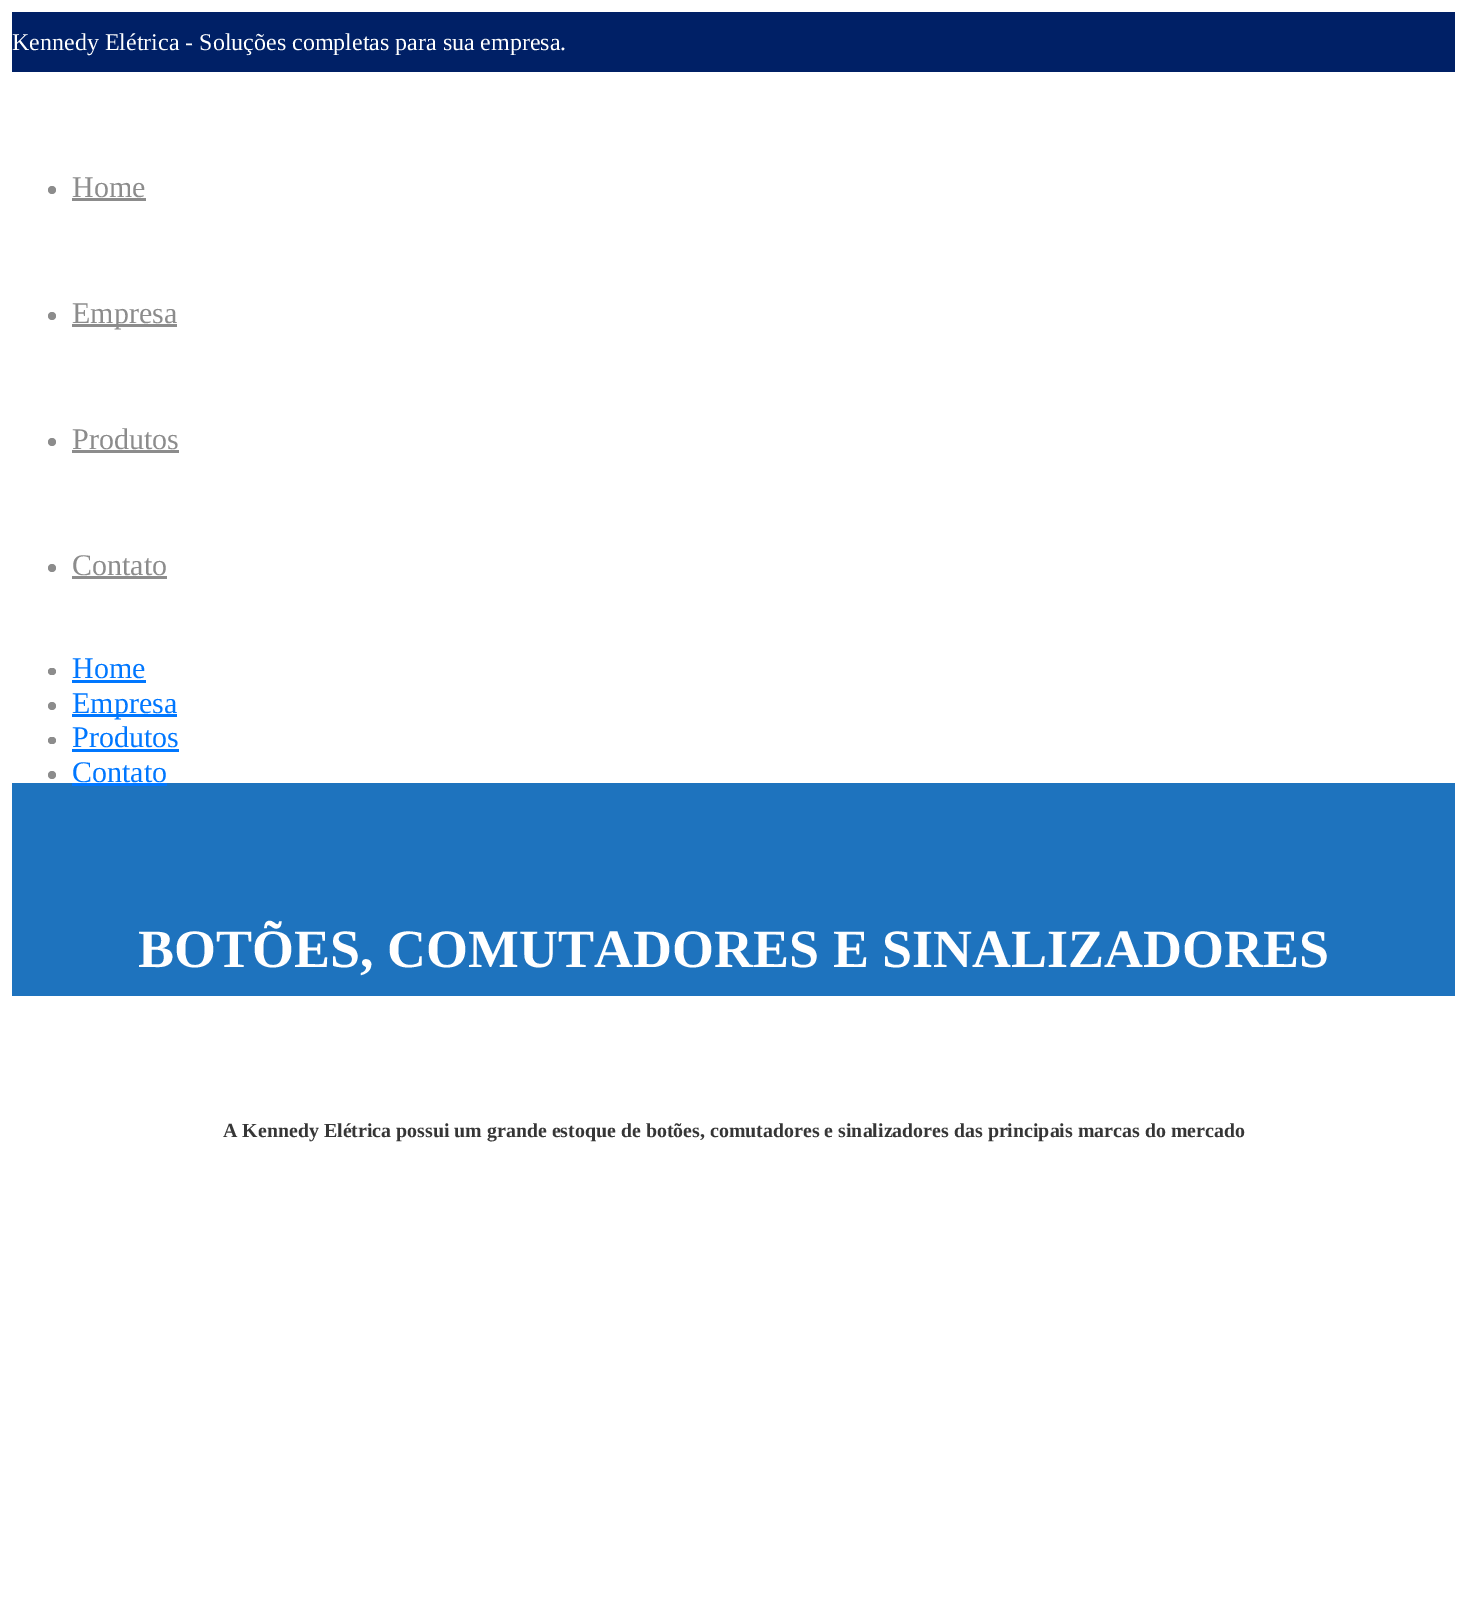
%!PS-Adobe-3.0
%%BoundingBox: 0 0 1467 1600
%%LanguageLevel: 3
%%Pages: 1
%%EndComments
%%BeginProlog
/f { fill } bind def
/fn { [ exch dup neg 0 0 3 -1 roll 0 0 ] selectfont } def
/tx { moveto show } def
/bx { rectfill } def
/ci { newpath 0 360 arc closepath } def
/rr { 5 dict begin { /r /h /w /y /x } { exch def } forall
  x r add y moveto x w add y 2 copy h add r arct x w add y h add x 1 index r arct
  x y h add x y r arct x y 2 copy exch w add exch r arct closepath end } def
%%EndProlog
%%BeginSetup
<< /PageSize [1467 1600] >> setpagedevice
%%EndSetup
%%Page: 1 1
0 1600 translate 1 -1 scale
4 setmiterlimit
1 setgray
0 0 1467 1600 bx
0 0.125 0.4 setrgbcolor
12 12 1443 60 bx
/LiberationSerif-Regular 24 fn
1 setgray
(Kennedy Elétrica - Soluções completas para sua empresa.) 12 50 tx
0.549 setgray
52 190 4 ci f
/LiberationSerif-Regular 30 fn
(Home) 72 197 tx
72 198 74 3 bx
52 316 4 ci f
72 324 105 3 bx
(Empresa) 72 323 tx
52 442 4 ci f
(Produtos) 72 449 tx
72 450 107 3 bx
52 568 4 ci f
(Contato) 72 575 tx
72 576 95 3 bx
48 668 8 7 3.5 rr f
0 0.467 1 setrgbcolor
(Home) 72 678 tx
72 680 74 3 bx
0.549 setgray
52 706 4 ci f
0 0.467 1 setrgbcolor
72 714 105 3 bx
(Empresa) 72 713 tx
0.549 setgray
48 737 8 7 3.5 rr f
0 0.467 1 setrgbcolor
(Produtos) 72 747 tx
72 749 107 3 bx
0.549 setgray
52 775 4 ci f
0 0.467 1 setrgbcolor
(Contato) 72 782 tx
0.118 0.451 0.745 setrgbcolor
12 783 1443 213 bx
0 0.467 1 setrgbcolor
72 783 95 3 bx
/LiberationSerif-Bold 54 fn
1 setgray
(BOTÕES, COMUTADORES E SINALIZADORES) 138 967 tx
/LiberationSerif-Bold 19.92 fn
0.212 setgray
(A Kennedy Elétrica possui um grande estoque de botões, comutadores e sinalizadores das principais marcas do mercado) 223 1137 tx
showpage
%%EOF
